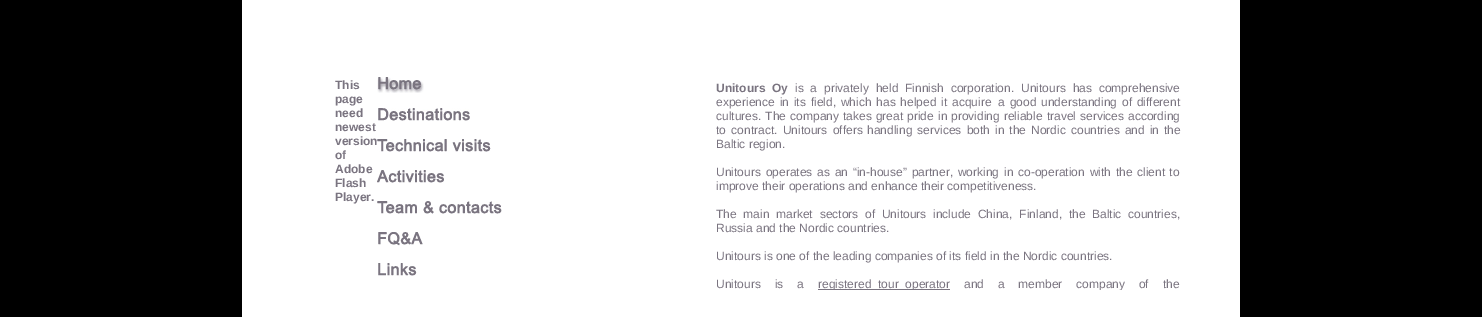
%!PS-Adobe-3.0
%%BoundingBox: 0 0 1482 317
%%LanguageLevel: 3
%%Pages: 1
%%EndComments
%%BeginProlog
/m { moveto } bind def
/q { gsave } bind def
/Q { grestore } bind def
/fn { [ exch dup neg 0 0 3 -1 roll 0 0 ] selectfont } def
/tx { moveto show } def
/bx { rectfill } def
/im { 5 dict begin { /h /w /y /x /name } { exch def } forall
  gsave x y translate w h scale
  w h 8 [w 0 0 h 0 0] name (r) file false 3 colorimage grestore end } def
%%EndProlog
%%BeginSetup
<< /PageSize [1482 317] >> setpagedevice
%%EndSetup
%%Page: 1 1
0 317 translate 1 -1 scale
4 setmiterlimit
0 setgray
0 0 1482 317 bx
1 setgray
242 0 998 317 bx
/LiberationSans-Bold 12 fn
0.478 0.455 0.502 setrgbcolor
(This) 335 89 tx
(page) 335 103 tx
(need) 335 117 tx
(newest) 335 131 tx
(version) 335 145 tx
(of) 335 159 tx
(Adobe) 335 173 tx
(Flash) 335 187 tx
(Player.) 335 201 tx
(image0.raw) 377 77 47 16 im
(image1.raw) 378 108 92 13 im
(image2.raw) 377 139 114 13 im
(image3.raw) 377 170 67 13 im
(image4.raw) 377 201 125 13 im
(image5.raw) 378 232 45 14 im
(image6.raw) 378 263 39 13 im
716 92 m 3.5 0 32 (Unitours Oy) widthshow
/LiberationSans-Regular 12 fn
795 92 m 3.5 0 32 (is a privately held Finnish corporation.) widthshow
1021 92 m 3.5 0 32 (Unitours has comprehensive) widthshow
716 106 m 1.5 0 32 (experience in its field, which has helped it acquire) widthshow
998 106 m 1.5 0 32 (a good understanding of different) widthshow
716 120 m 0.75 0 32 (cultures. The company takes great pride in) widthshow
951 120 m 0.75 0 32 (providing reliable travel services according) widthshow
716 134 m 2 0 32 (to contract. Unitours offers) widthshow
867 134 m 1.75 0 32 (handling services both in the Nordic countries and in the) widthshow
(Baltic region.) 716 148 tx
716 176 m 1.5 0 32 (Unitours operates as an “in-house” partner, working in co-operation with) widthshow
1116 176 m 1 0 32 (the client to) widthshow
(improve their operations and enhance their competitiveness.) 716 190 tx
716 218 m 3.4 0 32 (The main market sectors of Unitours include China, Finland, the Baltic countries,) widthshow
(Russia and the Nordic countries.) 716 232 tx
(Unitours is one of the leading companies of its field in the Nordic countries.) 716 260 tx
716 288 m 10.5 0 32 (Unitours is a) widthshow
818 289 132 1 bx
q
716 81 469 209 rectclip
(registered_tour_operator) 818 288 tx
964 288 m 10.5 0 32 (and a member company of the) widthshow
Q
showpage
%%EOF
